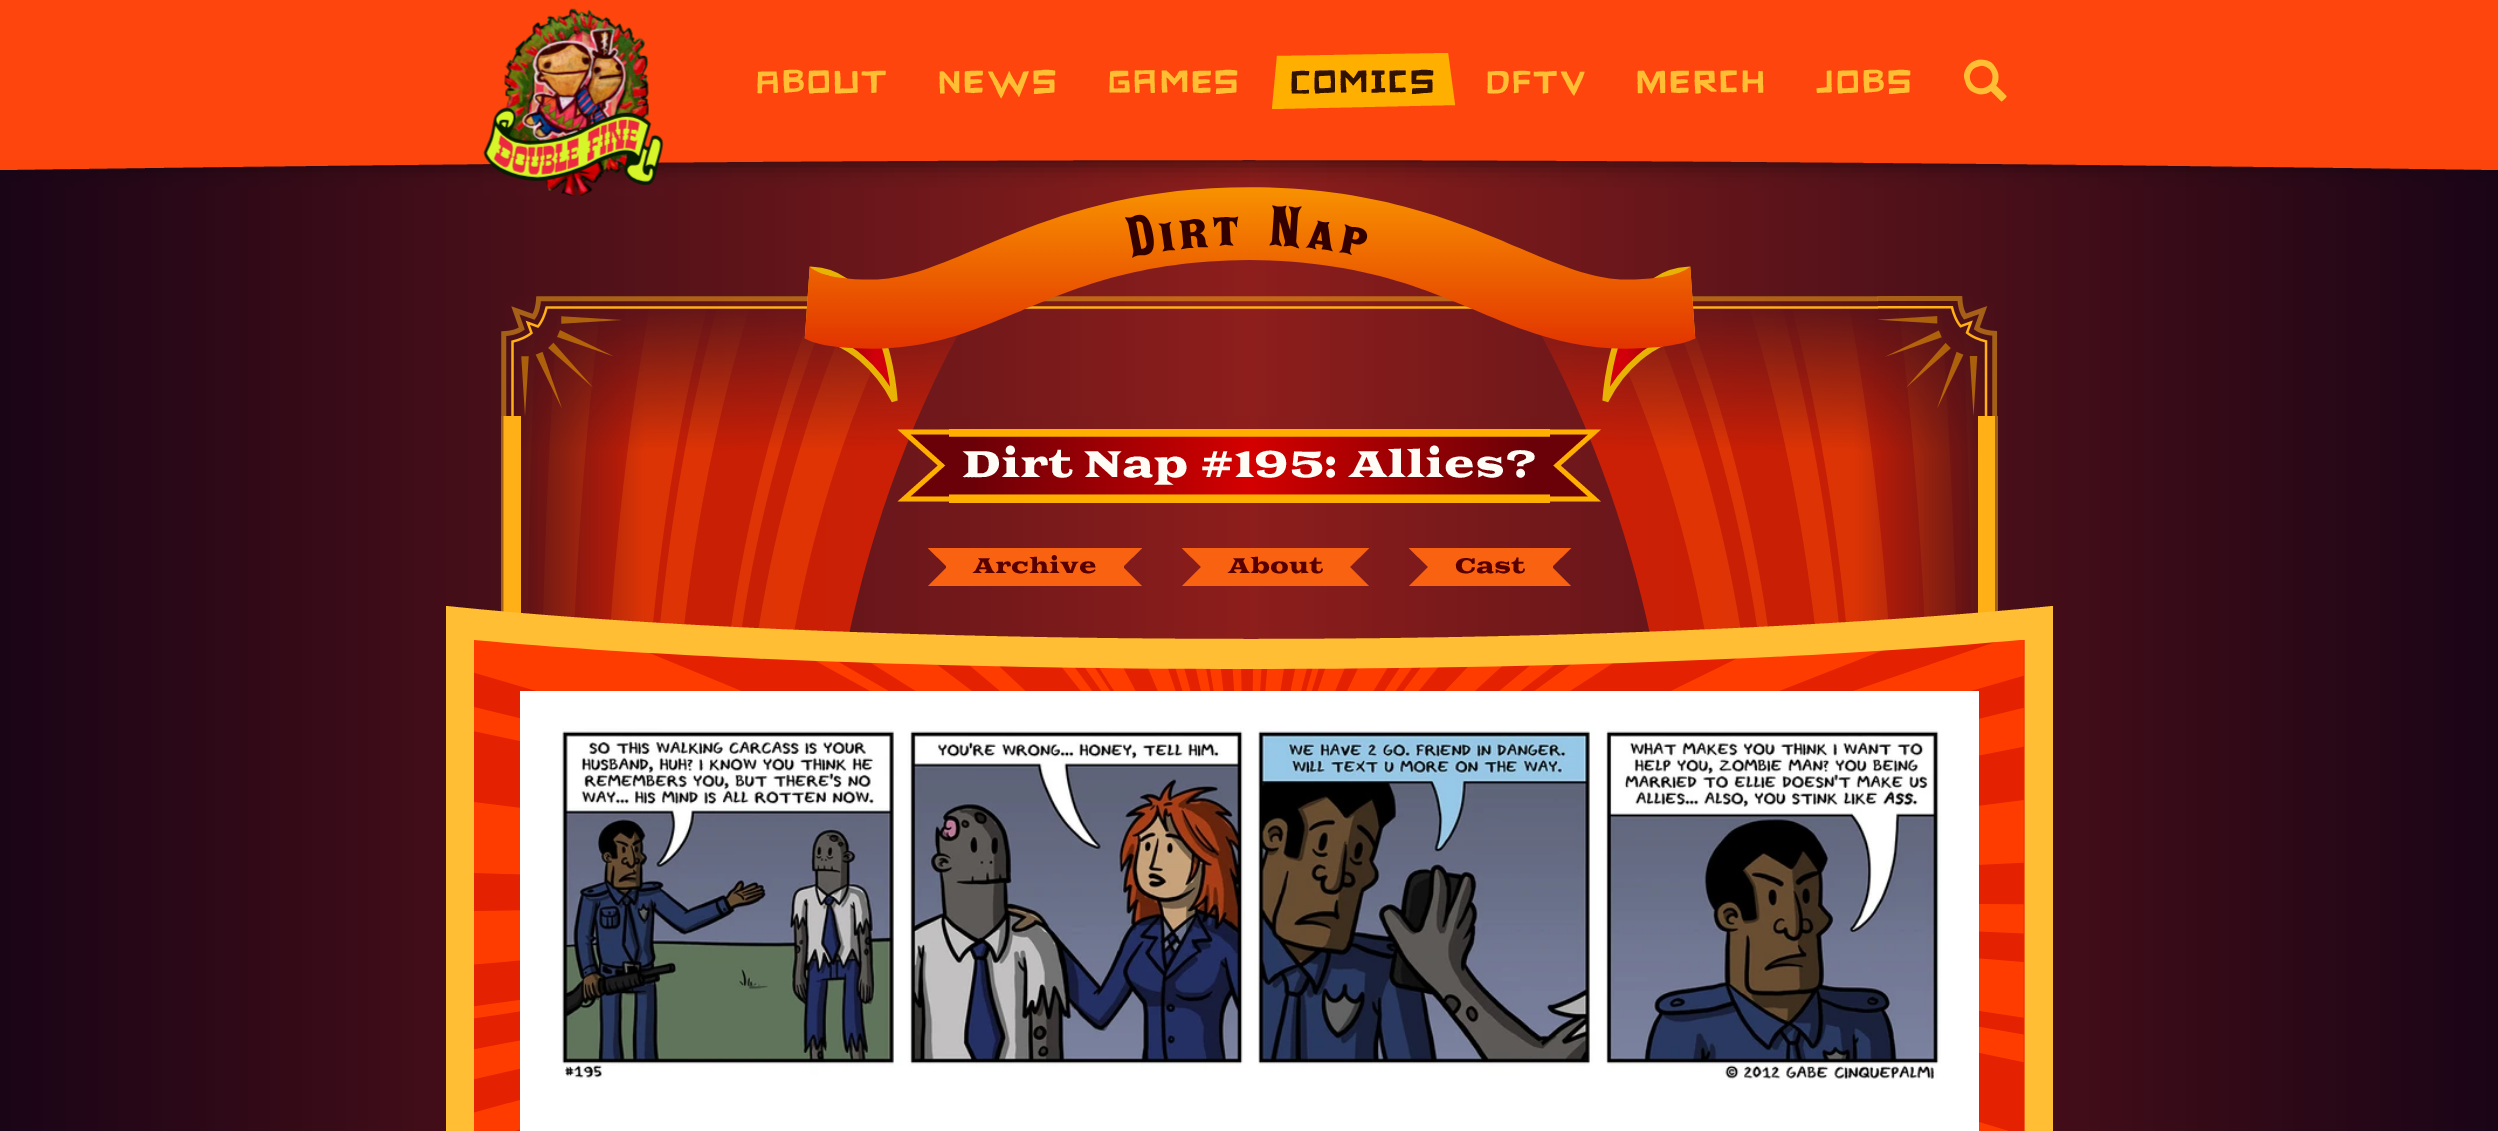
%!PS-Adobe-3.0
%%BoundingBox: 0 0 2498 1131
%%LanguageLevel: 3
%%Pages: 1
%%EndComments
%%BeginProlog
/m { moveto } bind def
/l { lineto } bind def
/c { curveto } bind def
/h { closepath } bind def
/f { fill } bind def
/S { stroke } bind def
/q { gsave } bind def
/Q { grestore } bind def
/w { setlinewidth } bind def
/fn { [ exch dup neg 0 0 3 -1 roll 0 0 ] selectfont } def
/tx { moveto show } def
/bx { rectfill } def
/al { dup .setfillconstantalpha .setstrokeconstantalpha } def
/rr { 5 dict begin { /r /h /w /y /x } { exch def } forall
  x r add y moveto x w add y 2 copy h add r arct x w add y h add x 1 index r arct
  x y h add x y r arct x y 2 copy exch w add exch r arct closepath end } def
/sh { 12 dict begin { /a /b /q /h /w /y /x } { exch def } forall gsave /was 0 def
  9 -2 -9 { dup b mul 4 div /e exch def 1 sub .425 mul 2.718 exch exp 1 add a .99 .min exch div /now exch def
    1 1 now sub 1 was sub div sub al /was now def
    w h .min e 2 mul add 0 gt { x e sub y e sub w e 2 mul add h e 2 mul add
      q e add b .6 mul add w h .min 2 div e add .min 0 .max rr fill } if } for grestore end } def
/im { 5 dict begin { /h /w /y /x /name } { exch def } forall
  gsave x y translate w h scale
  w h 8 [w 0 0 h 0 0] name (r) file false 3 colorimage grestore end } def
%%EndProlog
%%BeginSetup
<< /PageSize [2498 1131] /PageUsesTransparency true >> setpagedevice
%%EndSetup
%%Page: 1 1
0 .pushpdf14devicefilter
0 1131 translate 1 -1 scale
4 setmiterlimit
1 setgray
0 0 2498 1131 bx
q 0 160 m 2498 160 l 2498 1131 l 0 1131 l h clip newpath
<< /ShadingType 2 /ColorSpace /DeviceRGB /Coords [0 935 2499 935] /Extend [true true] /Function << /FunctionType 3 /Domain [0 1] /Functions [<< /FunctionType 2 /Domain [0 1] /C0 [0.102 0.02 0.09] /C1 [0.553 0.118 0.11] /N 1 >> << /FunctionType 2 /Domain [0 1] /C0 [0.553 0.118 0.11] /C1 [0.102 0.02 0.09] /N 1 >>] /Bounds [0.5] /Encode [0 1 0 1] >> >> shfill Q
(image4.raw) 506 300 452 332 im
(image5.raw) 1541 300 452 332 im
(image2.raw) 501 296 1377 120 im
(image6.raw) 804 187 892 216 im
0 setgray
0 5 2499 160 0 10 0.5 sh
0.992 0.271 0.051 setrgbcolor
0 0 2498 160 bx
0.988 0.271 0.051 setrgbcolor
0 170 m 553 162 970 160 1249 160 c 1523 160 1939 162 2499 170 c 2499 160 l 0 160 l h eofill
(image0.raw) 483 8 181 188 im
/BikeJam-Regular 36.75 fn
1 0.745 0.2 setrgbcolor
(About) 756 93 tx
(News) 938 93 tx
(Games) 1108 93 tx
1 0.686 0 setrgbcolor
1272 109 m 1277 56 l 1448 53 l 1455 105 l h eofill
0.196 0.071 0.004 setrgbcolor
(Comics) 1290 93 tx
1 0.745 0.2 setrgbcolor
(DFTV) 1486 93 tx
(Merch) 1636 93 tx
(Jobs) 1816 93 tx
(image1.raw) 1963 59 44 43 im
(image3.raw) 1877 296 121 120 im
q
501 416 20 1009 rectclip
0.5 al
1 0.69 0.086 setrgbcolor
35.7 w
529 34 m 529 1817 l 504 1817 l 504 34 l h S
1 al
17.8 w
530 -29.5 m 530 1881 l 512.5 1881 l 512.5 -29.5 l h S
Q
q
1978 416 20 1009 rectclip
0.5 al
1 0.69 0.086 setrgbcolor
35.7 w
1970 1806.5 m 1970 23.5 l 1995 23.5 l 1995 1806.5 l h S
1 al
17.8 w
1969 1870.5 m 1969 -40 l 1986 -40 l 1986 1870.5 l h S
Q
0.416 0.004 0.031 setrgbcolor
904 499 m 941 465 l 904 432 l 1026 432 l 988 465 l 1026 499 l h f
1 0.686 0 setrgbcolor
4.7 w
904 499 m 941.5 465.5 l 904 432 l 1025.5 432 l 988 465.5 l 1025.5 499 l h S
q 975 436 m 1550 436 l 1550 495 l 975 495 l h clip newpath
<< /ShadingType 2 /ColorSpace /DeviceRGB /Coords [1562 465 937 465] /Extend [true true] /Function << /FunctionType 3 /Domain [0 1] /Functions [<< /FunctionType 2 /Domain [0 1] /C0 [0.416 0.004 0.031] /C1 [0.416 0.004 0.031] /N 1 >> << /FunctionType 2 /Domain [0 1] /C0 [0.416 0.004 0.031] /C1 [0.835 0 0] /N 1 >> << /FunctionType 2 /Domain [0 1] /C0 [0.835 0 0] /C1 [0.416 0.004 0.031] /N 1 >> << /FunctionType 2 /Domain [0 1] /C0 [0.416 0.004 0.031] /C1 [0.416 0.004 0.031] /N 1 >>] /Bounds [0.05 0.5 0.95] /Encode [0 1 0 1 0 1 0 1] >> >> shfill Q
q
949 429 601 74 rectclip
8.9 w
1562 432 m 1562 499 l 937.5 499 l 937.5 432 l h S
Q
/GoblinOne-Regular 36.75 fn
1 0.988 0.961 setrgbcolor
(Dirt Nap #195: Allies?) 962 477 tx
q
1550 429 51 74 rectclip
0.416 0.004 0.031 setrgbcolor
1473 499 m 1510 465 l 1473 432 l 1594 432 l 1557 465 l 1594 499 l h f
1 0.686 0 setrgbcolor
1472.5 499 m 1510 465.5 l 1472.5 432 l 1594.5 432 l 1557 465.5 l 1594.5 499 l h S
Q
q
921 548 228 38 rectclip
0.976 0.384 0.063 setrgbcolor
917 537 m 977 537 l 947 567 l h f
Q
0.976 0.384 0.063 setrgbcolor
946 554 14 26 bx
q
921 548 228 38 rectclip
977 597 m 917 597 l 947 567 l h f
1093 537 m 1153 537 l 1123 567 l h 1153 597 m 1093 597 l 1123 567 l h f
Q
960 548 150 38 bx
/GoblinOne-Regular 21 fn
0.341 0 0 setrgbcolor
(Archive) 973 573 tx
0.976 0.384 0.063 setrgbcolor
1110 554 14 26 bx
q
1176 548 199 38 rectclip
1171 537 m 1231 537 l 1201 567 l h f
Q
1201 554 13 26 bx
q
1176 548 199 38 rectclip
1231 597 m 1171 597 l 1201 567 l h f
1320 537 m 1380 537 l 1350 567 l h 1380 597 m 1320 597 l 1350 567 l h f
Q
1214 548 124 38 bx
0.341 0 0 setrgbcolor
(About) 1228 573 tx
0.976 0.384 0.063 setrgbcolor
1338 555 12 24 bx
q
1403 548 175 38 rectclip
1398 537 m 1458 537 l 1428 567 l h f
Q
1428 554 13 26 bx
q
1403 548 175 38 rectclip
1458 597 m 1398 597 l 1428 567 l h f
1522 537 m 1582 537 l 1552 567 l h 1582 597 m 1522 597 l 1552 567 l h f
Q
1441 548 98 38 bx
0.341 0 0 setrgbcolor
(Cast) 1455 573 tx
0.976 0.384 0.063 setrgbcolor
1539 554 14 26 bx
1 0.745 0.2 setrgbcolor
2053 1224 m 1863 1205 1575 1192 1250 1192 c 930 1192 637 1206 446 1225 c 446 606 l 637 626 927 639 1251 639 c 1576 639 1863 625 2053 606 c h eofill
(image7.raw) 474 640 1551 491 im
1 setgray
520 691 1459 440 bx
(image8.raw) 560 728 1381 352 im
.poppdf14devicefilter showpage
%%EOF
